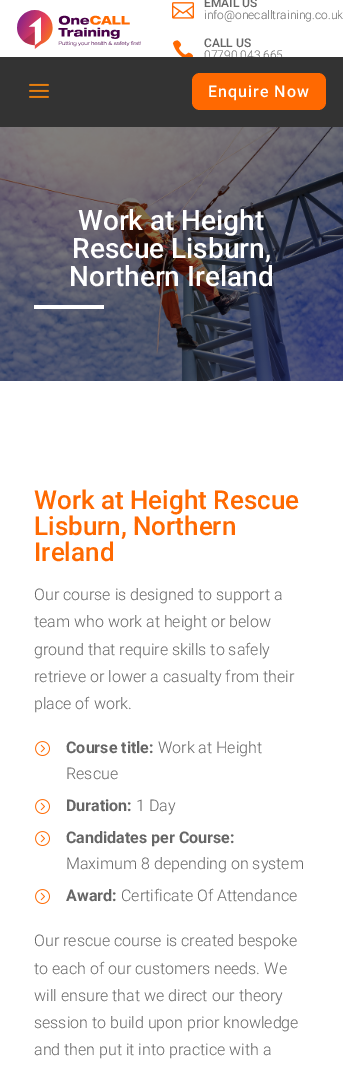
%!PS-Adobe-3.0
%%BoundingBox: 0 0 343 1066
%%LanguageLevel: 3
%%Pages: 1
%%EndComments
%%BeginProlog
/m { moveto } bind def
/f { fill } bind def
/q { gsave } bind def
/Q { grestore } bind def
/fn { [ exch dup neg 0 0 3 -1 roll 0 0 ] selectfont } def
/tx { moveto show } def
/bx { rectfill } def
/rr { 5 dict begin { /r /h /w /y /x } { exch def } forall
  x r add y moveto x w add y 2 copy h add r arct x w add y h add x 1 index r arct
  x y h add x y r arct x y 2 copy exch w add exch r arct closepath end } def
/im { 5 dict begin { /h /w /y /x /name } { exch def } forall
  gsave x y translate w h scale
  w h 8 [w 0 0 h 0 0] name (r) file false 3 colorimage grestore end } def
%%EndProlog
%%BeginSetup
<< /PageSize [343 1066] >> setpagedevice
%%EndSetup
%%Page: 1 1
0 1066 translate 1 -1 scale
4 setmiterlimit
1 setgray
0 0 343 1066 bx
(image0.raw) 17 10 124 39 im
(image1.raw) 172 2 22 17 im
/Roboto-Medium 12 fn
0.4 setgray
(EMAIL US) 204 7 tx
/Roboto-Light 12 fn
(info@onecalltraining.co.uk) 204 19 tx
(image2.raw) 172 40 22 17 im
/Roboto-Medium 12 fn
(CALL US) 204 47 tx
q
0 0 343 57 rectclip
/Roboto-Light 12 fn
(07790 043 665) 204 59 tx
Q
0.2 setgray
0 57 343 70 bx
(image3.raw) 29 83 20 15 im
1 0.412 0.004 setrgbcolor
192 73 134 37 8 rr f
/Roboto-Medium 16 fn
1 setgray
208 97 m 1 0 (Enquire Now) ashow
(image4.raw) 0 127 343 254 im
/Roboto-Medium 28 fn
(Work at Height) 78 230 tx
(Rescue Lisburn,) 72 258 tx
(Northern Ireland) 69 286 tx
34 305 70 4 bx
/Roboto-Medium 26 fn
1 0.412 0.004 setrgbcolor
(Work at Height Rescue) 34 509 tx
(Lisburn, Northern) 34 535 tx
(Ireland) 34 561 tx
/Roboto-Light 16 fn
0.4 setgray
(Our course is designed to support a) 34 600 tx
(team who work at height or below) 34 627 tx
(ground that require skills to safely) 34 655 tx
(retrieve or lower a casualty from their) 34 682 tx
(place of work.) 34 709 tx
(image5.raw) 35 741 15 15 im
/Roboto-Bold 16 fn
(Course title:) 66 753 tx
/Roboto-Light 16 fn
(Work at Height) 158 753 tx
(Rescue) 66 779 tx
(image5.raw) 35 799 15 15 im
/Roboto-Bold 16 fn
(Duration:) 66 811 tx
/Roboto-Light 16 fn
(1 Day) 136 811 tx
(image5.raw) 35 831 15 15 im
/Roboto-Bold 16 fn
(Candidates per Course:) 66 843 tx
/Roboto-Light 16 fn
(Maximum 8 depending on system) 66 869 tx
(image5.raw) 35 889 15 15 im
/Roboto-Bold 16 fn
(Award:) 66 901 tx
/Roboto-Light 16 fn
(Certificate Of Attendance) 121 901 tx
(Our rescue course is created bespoke) 34 946 tx
(to each of our customers needs. We) 34 974 tx
(will ensure that we direct our theory) 34 1001 tx
(session to build upon prior knowledge) 34 1028 tx
(and then put it into practice with a) 34 1055 tx
showpage
%%EOF
